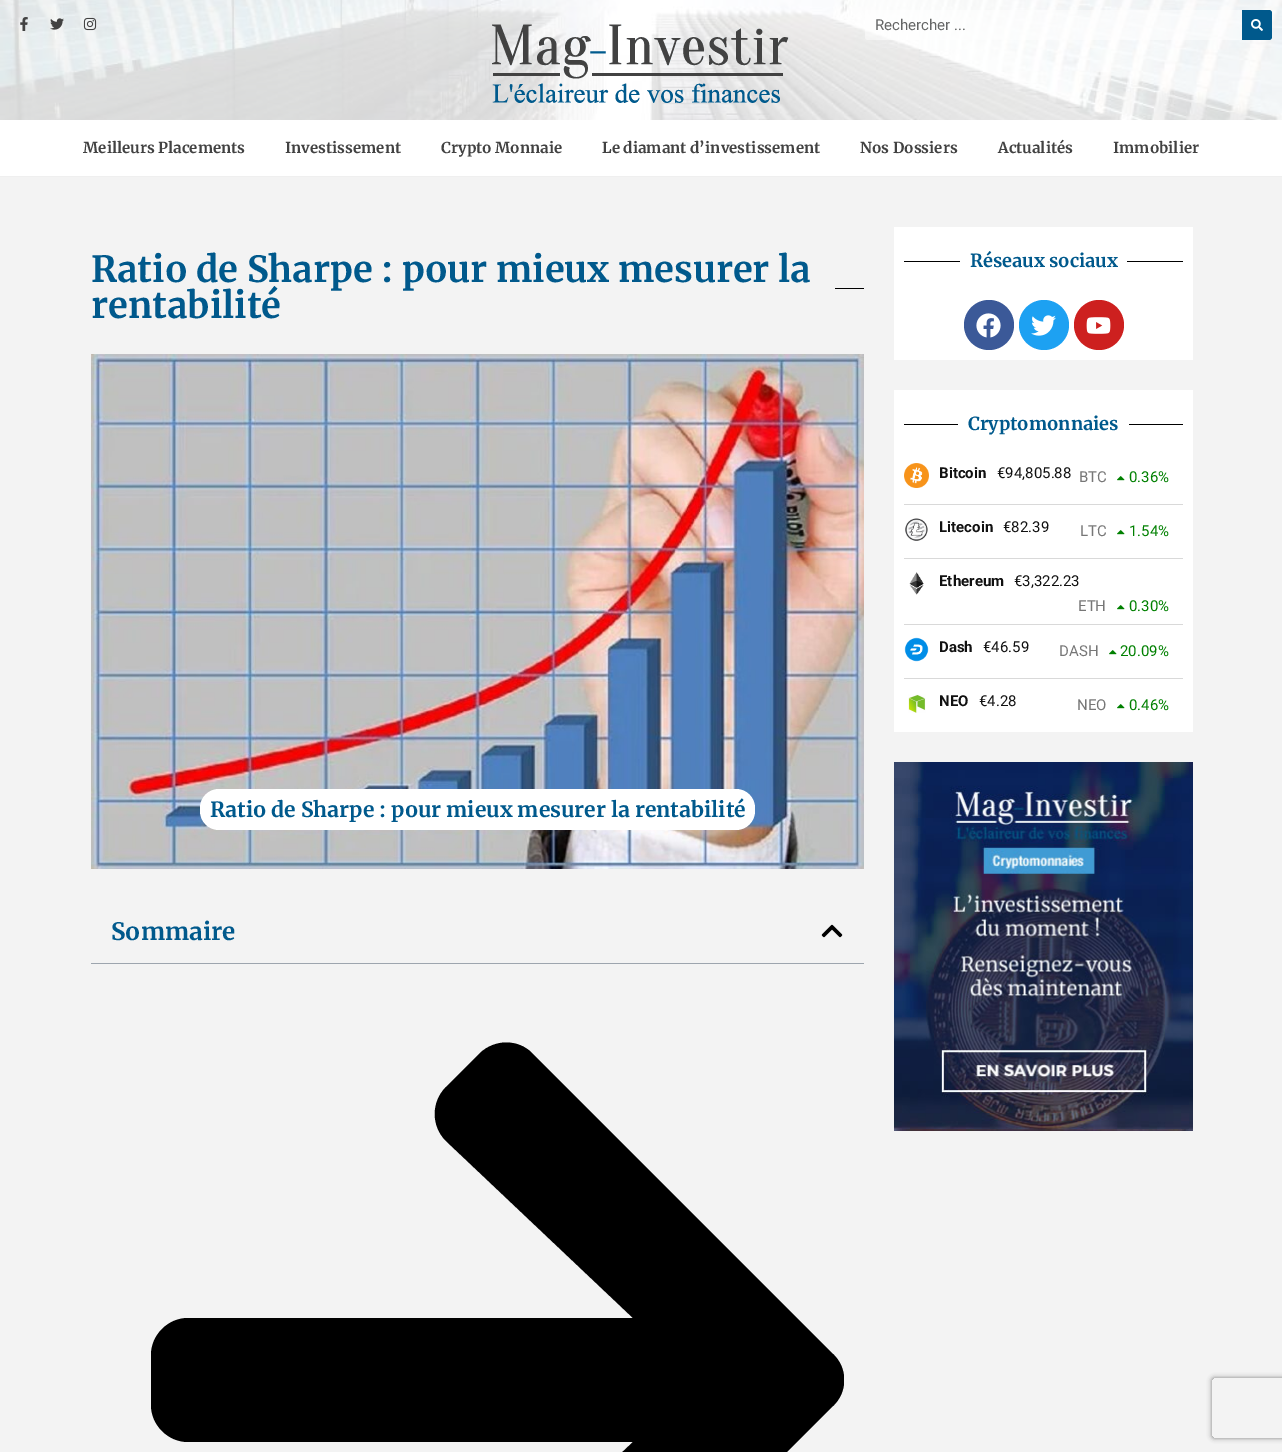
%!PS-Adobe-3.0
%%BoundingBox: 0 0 1282 1452
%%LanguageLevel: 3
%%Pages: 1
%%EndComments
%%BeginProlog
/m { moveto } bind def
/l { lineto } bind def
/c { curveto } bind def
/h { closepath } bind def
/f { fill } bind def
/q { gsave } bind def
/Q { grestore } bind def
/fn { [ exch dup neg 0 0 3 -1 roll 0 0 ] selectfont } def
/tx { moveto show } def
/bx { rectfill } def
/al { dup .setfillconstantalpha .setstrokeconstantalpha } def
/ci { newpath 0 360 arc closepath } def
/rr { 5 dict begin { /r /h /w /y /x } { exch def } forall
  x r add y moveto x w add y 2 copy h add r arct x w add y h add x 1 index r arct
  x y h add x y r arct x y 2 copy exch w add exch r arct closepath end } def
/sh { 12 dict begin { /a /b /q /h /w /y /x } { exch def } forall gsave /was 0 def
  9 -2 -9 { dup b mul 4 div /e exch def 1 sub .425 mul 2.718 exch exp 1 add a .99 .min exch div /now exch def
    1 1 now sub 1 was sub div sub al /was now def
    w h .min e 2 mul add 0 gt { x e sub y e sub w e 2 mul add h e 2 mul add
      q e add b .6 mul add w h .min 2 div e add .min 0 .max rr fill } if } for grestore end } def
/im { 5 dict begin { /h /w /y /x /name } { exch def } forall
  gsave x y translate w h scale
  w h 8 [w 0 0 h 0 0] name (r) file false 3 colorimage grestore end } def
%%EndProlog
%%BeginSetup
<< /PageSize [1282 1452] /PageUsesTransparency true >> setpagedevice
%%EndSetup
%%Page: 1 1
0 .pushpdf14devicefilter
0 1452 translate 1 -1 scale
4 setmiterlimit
0.953 setgray
0 0 1282 1452 bx
(image0.raw) 0 0 1282 120 im
(image1.raw) 20 17 8 14 im
(image2.raw) 50 18 14 12 im
(image3.raw) 83 17 14 14 im
(image4.raw) 492 24 297 79 im
0.46 al
1 setgray
865 10 407 30 3 rr f
/Roboto-Regular 15 fn
1 al
0.396 0.4 0.4 setrgbcolor
(Rechercher ...) 875 30 tx
0 0.349 0.549 setrgbcolor
1242 10 m 1269 10 l 1270.5 10 1272 11.5 1272 13 c 1272 37 l 1272 38.5 1270.5 40 1269 40 c 1242 40 l h f
(image5.raw) 1251 19 12 12 im
1 setgray
0 120 1282 56 bx
0.937 setgray
0 176 1282 1 bx
/Merriweather-Bold 15 fn
0.259 setgray
(Meilleurs Placements) 83 153 tx
(Investissement) 285 153 tx
(Crypto Monnaie) 441 153 tx
(Le diamant d’investissement) 602 153 tx
(Nos Dossiers) 860 153 tx
(Actualités) 998 153 tx
(Immobilier) 1113 153 tx
/Merriweather-Bold 36 fn
0 0.349 0.549 setrgbcolor
(Ratio de Sharpe : pour mieux mesurer la) 91 282 tx
(rentabilité) 91 318 tx
0 setgray
835 288 29 1 bx
(image6.raw) 91 354 773 515 im
1 setgray
200 789 555 41 19 rr f
/Merriweather-Bold 21 fn
0 0.349 0.549 setrgbcolor
(Ratio de Sharpe : pour mieux mesurer la rentabilité) 210 817 tx
0.616 0.647 0.682 setrgbcolor
91 963 773 1 bx
/Merriweather-Bold 24 fn
0 0.349 0.549 setrgbcolor
(Sommaire) 111 940 tx
(image7.raw) 821 924 22 14 im
q
151 984 693 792 rectclip
0 setgray
446 1087 m 480 1053 l 495 1039 518 1039 532 1053 c 833 1354 l 848 1368 848 1392 833 1406 c 532 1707 l 518 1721 494 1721 480 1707 c 446 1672 l 431 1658 431 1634 446 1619 c 633 1442 l 188 1442 l 168 1442 151 1425 151 1405 c 151 1355 l 151 1335 168 1318 188 1318 c 633 1318 l 446 1141 l 431 1126 431 1102 446 1087 c h f
Q
1 setgray
894 227 299 133 bx
0 setgray
904 261 56 1 bx
/Merriweather-Bold 18 fn
0 0.349 0.549 setrgbcolor
(Réseaux sociaux) 970 267 tx
0 setgray
1127 261 56 1 bx
0.231 0.349 0.596 setrgbcolor
989 325 25 ci f
(image8.raw) 976 313 25 25 im
0.114 0.631 0.949 setrgbcolor
1044 325 25 ci f
(image9.raw) 1031 315 25 21 im
0.804 0.125 0.122 setrgbcolor
1099 325 25 ci f
(image10.raw) 1086 317 25 17 im
1 setgray
894 390 299 342 bx
0 setgray
904 424 54 1 bx
0 0.349 0.549 setrgbcolor
(Cryptomonnaies) 968 430 tx
0 setgray
1129 424 54 1 bx
0.851 setgray
904 504 279 1 bx
(image11.raw) 904 463 25 25 im
/Roboto-Bold 15 fn
0.067 setgray
(Bitcoin) 939 478 tx
/Roboto-Regular 15 fn
(€94,805.88) 997 478 tx
0.467 setgray
(BTC) 1079 482 tx
(image12.raw) 1117 476 8 5 im
0 0.502 0 setrgbcolor
(0.36%) 1129 482 tx
0.851 setgray
904 558 279 1 bx
(image13.raw) 905 518 23 23 im
/Roboto-Bold 15 fn
0.067 setgray
(Litecoin) 939 532 tx
/Roboto-Regular 15 fn
(€82.39) 1003 532 tx
0.467 setgray
(LTC) 1080 536 tx
(image12.raw) 1117 530 8 5 im
0 0.502 0 setrgbcolor
(1.54%) 1129 536 tx
0.851 setgray
904 624 279 1 bx
(image14.raw) 909 572 15 23 im
/Roboto-Bold 15 fn
0.067 setgray
(Ethereum) 939 586 tx
/Roboto-Regular 15 fn
(€3,322.23) 1014 586 tx
0.467 setgray
(ETH) 1078 611 tx
(image12.raw) 1117 605 8 5 im
0 0.502 0 setrgbcolor
(0.30%) 1129 611 tx
0.851 setgray
904 678 279 1 bx
(image15.raw) 904 637 25 25 im
/Roboto-Bold 15 fn
0.067 setgray
(Dash) 939 652 tx
/Roboto-Regular 15 fn
(€46.59) 983 652 tx
0.467 setgray
(DASH) 1059 656 tx
(image12.raw) 1109 650 8 5 im
0 0.502 0 setrgbcolor
(20.09%) 1120 656 tx
(image16.raw) 908 694 18 19 im
/Roboto-Bold 15 fn
0.067 setgray
(NEO) 939 706 tx
/Roboto-Regular 15 fn
(€4.28) 979 706 tx
0.467 setgray
(NEO) 1077 710 tx
(image12.raw) 1117 704 8 5 im
0 0.502 0 setrgbcolor
(0.46%) 1129 710 tx
(image17.raw) 894 762 299 369 im
q
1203 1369 m 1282 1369 l 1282 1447 l 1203 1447 l h 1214 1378 m 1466 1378 l 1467 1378 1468 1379 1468 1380 c 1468 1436 l 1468 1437 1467 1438 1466 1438 c 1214 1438 l 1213 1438 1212 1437 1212 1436 c 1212 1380 l 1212 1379 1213 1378 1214 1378 c h eoclip newpath
0.502 setgray
1212 1378 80 60 2 2.5 1 sh
Q
.poppdf14devicefilter showpage
%%EOF
